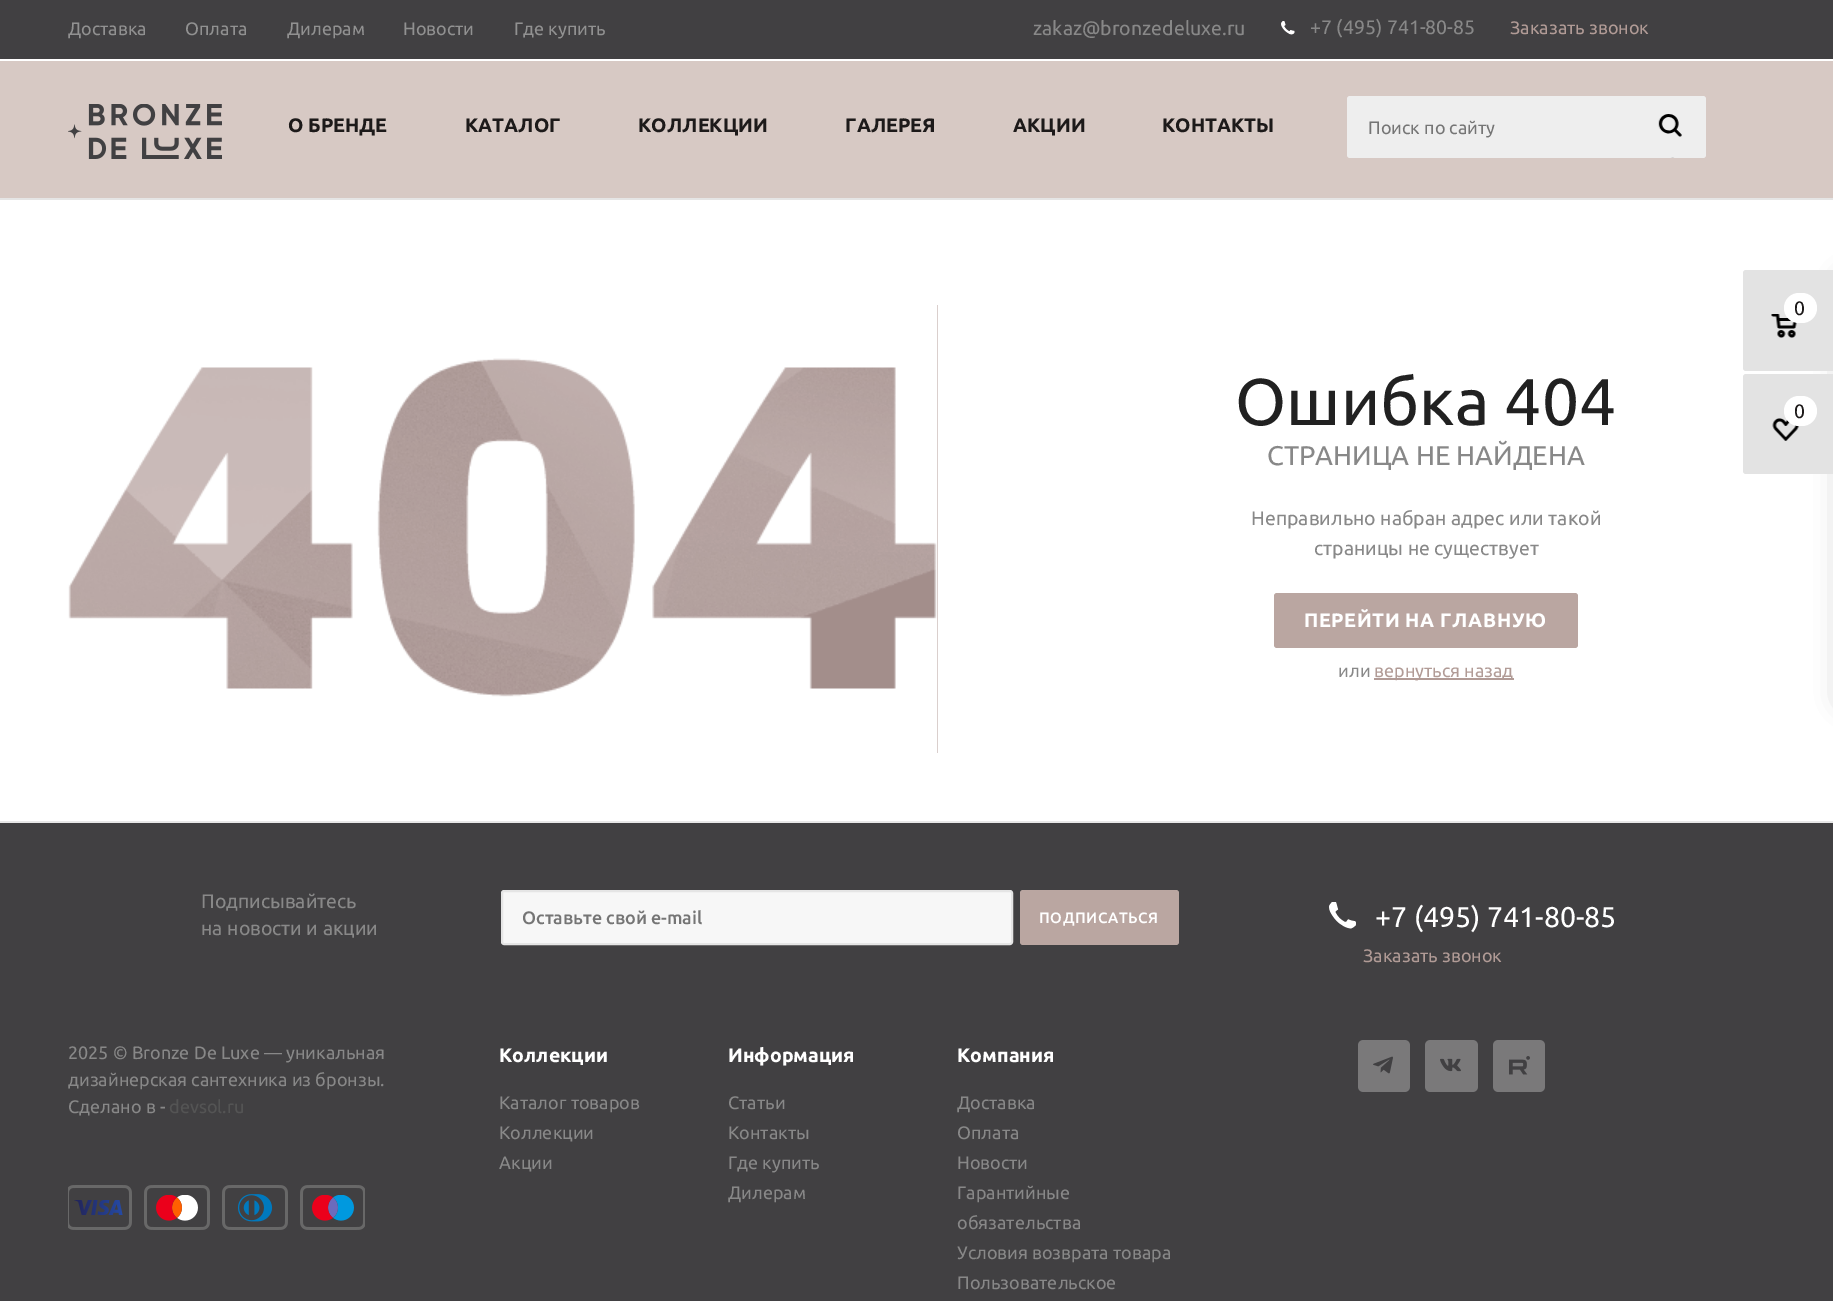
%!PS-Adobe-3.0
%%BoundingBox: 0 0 1833 1301
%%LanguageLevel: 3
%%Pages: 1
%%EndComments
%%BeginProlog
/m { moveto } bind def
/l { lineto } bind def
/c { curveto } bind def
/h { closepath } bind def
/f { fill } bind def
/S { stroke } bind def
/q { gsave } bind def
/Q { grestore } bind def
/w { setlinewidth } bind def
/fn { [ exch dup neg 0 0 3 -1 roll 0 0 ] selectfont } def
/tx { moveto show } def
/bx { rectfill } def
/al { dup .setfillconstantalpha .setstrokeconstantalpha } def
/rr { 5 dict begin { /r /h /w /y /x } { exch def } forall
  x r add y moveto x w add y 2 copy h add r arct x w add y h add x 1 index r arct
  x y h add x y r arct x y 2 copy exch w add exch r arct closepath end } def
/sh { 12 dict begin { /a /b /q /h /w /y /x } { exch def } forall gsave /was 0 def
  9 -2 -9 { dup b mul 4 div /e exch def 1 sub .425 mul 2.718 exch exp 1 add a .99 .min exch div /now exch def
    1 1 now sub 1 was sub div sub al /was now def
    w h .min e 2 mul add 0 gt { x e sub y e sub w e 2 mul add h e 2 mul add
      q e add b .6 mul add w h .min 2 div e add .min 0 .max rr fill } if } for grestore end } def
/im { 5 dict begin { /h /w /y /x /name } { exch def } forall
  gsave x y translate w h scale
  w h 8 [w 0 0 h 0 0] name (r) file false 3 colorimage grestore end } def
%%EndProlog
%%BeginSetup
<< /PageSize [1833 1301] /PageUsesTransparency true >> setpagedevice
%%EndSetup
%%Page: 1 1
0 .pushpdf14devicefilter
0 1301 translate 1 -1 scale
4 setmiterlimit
1 setgray
0 0 1833 1301 bx
0.255 0.251 0.259 setrgbcolor
0 0 1833 59 bx
/Ubuntu-Regular 18 fn
0.569 setgray
(Доставка) 68 35 tx
(Оплата) 185 35 tx
(Дилерам) 287 35 tx
(Новости) 403 35 tx
(Где купить) 514 35 tx
/Ubuntu-Regular 19.5 fn
0.533 setgray
(zakaz@bronzedeluxe.ru) 1033 35 tx
(image0.raw) 1281 21 14 14 im
(+7 \(495\) 741-80-85) 1310 34 tx
/Ubuntu-Regular 18 fn
0.694 0.608 0.588 setrgbcolor
(Заказать звонок) 1510 34 tx
0.843 0.788 0.769 setrgbcolor
0 61 1833 137 bx
0.898 setgray
0 198 1833 2 bx
(image1.raw) 68 104 154 55 im
/Ubuntu-Bold 19.5 fn
0.114 0.102 0.102 setrgbcolor
(О БРЕНДЕ) 288 132 tx
(КАТАЛОГ) 465 132 tx
(КОЛЛЕКЦИИ) 638 132 tx
(ГАЛЕРЕЯ) 845 132 tx
(АКЦИИ) 1013 132 tx
(КОНТАКТЫ) 1162 132 tx
0.933 setgray
1347 96 359 62 3 rr f
/Ubuntu-Regular 18 fn
0.459 setgray
(Поиск по сайту) 1368 134 tx
(image2.raw) 1658 114 24 44 im
0.173 setgray
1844 279 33 423 3 13.5 0.4 sh
0.89 setgray
1746 270 m 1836 270 l 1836 371 l 1746 371 l 1744.5 371 1743 369.5 1743 368 c 1743 273 l 1743 271.5 1744.5 270 1746 270 c h f
(image3.raw) 1771 314 26 24 im
1 setgray
1784 293 33 30 15 rr f
/Ubuntu-Regular 19.5 fn
0.114 0.102 0.102 setrgbcolor
(0) 1794 315 tx
0.89 setgray
1746 374 m 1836 374 l 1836 474 l 1746 474 l 1744.5 474 1743 472.5 1743 471 c 1743 377 l 1743 375.5 1744.5 374 1746 374 c h f
(image4.raw) 1772 418 27 23 im
1 setgray
1784 396 33 30 15 rr f
0.114 0.102 0.102 setrgbcolor
(0) 1794 418 tx
0.71 0.62 0.608 setrgbcolor
68 305 870 448 bx
(image5.raw) 68 305 870 448 im
/Ubuntu-Regular 66 fn
0.129 setgray
(Ошибка 404) 1235 425 tx
/Ubuntu-Regular 27 fn
0.533 setgray
(СТРАНИЦА НЕ НАЙДЕНА) 1267 465 tx
/Ubuntu-Regular 19.5 fn
(Неправильно набран адрес или такой) 1251 525 tx
(страницы не существует) 1314 555 tx
0.729 0.651 0.631 setrgbcolor
1274 593 304 55 3 rr f
/Ubuntu-Bold 19.5 fn
1 setgray
1304 627 m 0.6 0 (ПЕРЕЙТИ НА ГЛАВНУЮ) ashow
/Ubuntu-Regular 18 fn
0.533 setgray
(или) 1338 677 tx
0.694 0.608 0.588 setrgbcolor
1374 678 140 2 bx
(вернуться назад) 1374 677 tx
0.255 0.251 0.259 setrgbcolor
0 823 1833 478 bx
0.906 setgray
0 821 1833 2 bx
/Ubuntu-Regular 19.5 fn
0.533 setgray
(Подписывайтесь) 201 908 tx
(на новости и акции) 201 935 tx
0.969 setgray
502 891 510 53 2 rr q f Q
0.898 setgray
2 w
S
/Ubuntu-Medium 18 fn
0.459 setgray
(Оставьте свой e-mail) 522 924 tx
0.729 0.651 0.631 setrgbcolor
1020 890 159 55 3 rr f
/Ubuntu-Medium 15 fn
1 setgray
1039 923 m 0.6 0 (ПОДПИСАТЬСЯ) ashow
(image6.raw) 1329 902 27 27 im
/Ubuntu-Regular 28.5 fn
(+7 \(495\) 741-80-85) 1375 927 tx
/Ubuntu-Regular 18 fn
0.694 0.608 0.588 setrgbcolor
(Заказать звонок) 1363 962 tx
0.533 setgray
(2025 © Bronze De Luxe — уникальная) 68 1059 tx
(дизайнерская сантехника из бронзы.) 68 1086 tx
(Сделано в -) 68 1113 tx
0.329 setgray
(devsol.ru) 169 1113 tx
(image7.raw) 68 1185 297 45 im
/Ubuntu-Bold 19.5 fn
1 setgray
(Коллекции) 499 1062 tx
(Информация) 728 1062 tx
(Компания) 957 1062 tx
/Ubuntu-Regular 18 fn
0.533 setgray
(Каталог товаров) 499 1109 tx
(Коллекции) 499 1139 tx
(Акции) 499 1169 tx
(Статьи) 728 1109 tx
(Контакты) 728 1139 tx
(Где купить) 728 1169 tx
(Дилерам) 728 1199 tx
(Доставка) 957 1109 tx
(Оплата) 957 1139 tx
(Новости) 957 1169 tx
(Гарантийные) 957 1199 tx
(обязательства) 957 1229 tx
(Условия возврата товара) 957 1259 tx
(Пользовательское) 957 1289 tx
(image8.raw) 1358 1040 52 52 im
(image9.raw) 1425 1040 53 52 im
(image10.raw) 1493 1040 52 52 im
.poppdf14devicefilter showpage
%%EOF
